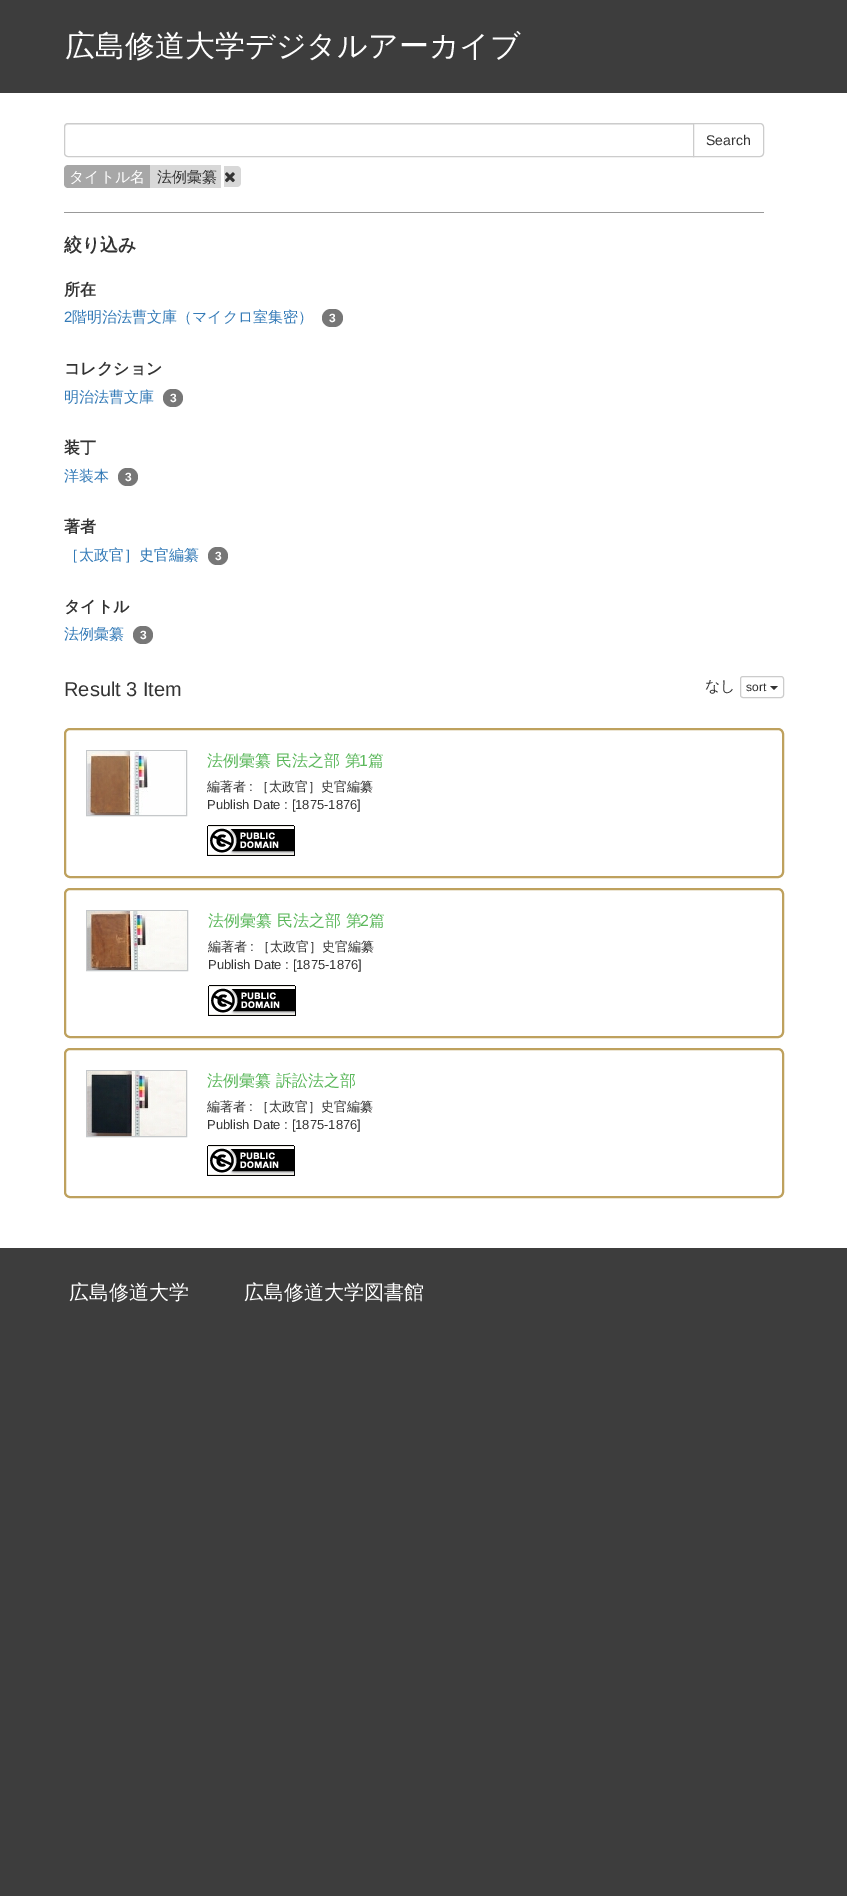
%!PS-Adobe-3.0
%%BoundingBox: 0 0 847 1896
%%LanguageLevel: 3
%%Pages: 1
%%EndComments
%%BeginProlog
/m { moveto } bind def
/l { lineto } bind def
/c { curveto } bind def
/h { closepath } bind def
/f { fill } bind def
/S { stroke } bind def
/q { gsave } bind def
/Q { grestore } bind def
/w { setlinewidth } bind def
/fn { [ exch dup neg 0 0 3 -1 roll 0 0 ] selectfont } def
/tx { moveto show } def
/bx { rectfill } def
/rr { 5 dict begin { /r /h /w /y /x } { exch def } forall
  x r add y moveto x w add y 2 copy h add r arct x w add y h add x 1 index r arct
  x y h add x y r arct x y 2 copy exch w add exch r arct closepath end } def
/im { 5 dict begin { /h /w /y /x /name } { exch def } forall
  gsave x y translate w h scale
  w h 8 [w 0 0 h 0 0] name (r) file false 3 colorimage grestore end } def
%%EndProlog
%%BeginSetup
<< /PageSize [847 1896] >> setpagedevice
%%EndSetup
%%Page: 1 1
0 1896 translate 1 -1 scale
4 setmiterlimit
0.239 setgray
0 0 847 1896 bx
/WenQuanYiZenHei-Medium 30 fn
1 setgray
(広島修道大学デジタルアーカイブ) 65 56 tx
0 93 847 1155 bx
0.925 setgray
68 125 m 693 125 l 693 124 l 68 124 l 66 124 65 125 65 127 c 65 128 l 65 126 66 125 68 125 c h f
0.8 setgray
68 123.5 m 693.5 123.5 l 693.5 156.5 l 68 156.5 l 66 156.5 64.5 155 64.5 153 c 64.5 127 l 64.5 125 66 123.5 68 123.5 c h S
1 setgray
693.5 123.5 m 760 123.5 l 762 123.5 763.5 125 763.5 127 c 763.5 153 l 763.5 155 762 156.5 760 156.5 c 693.5 156.5 l h q f Q
0.8 setgray
S
/LiberationSans-Regular 14 fn
0.2 setgray
(Search) 706 145 tx
0.655 setgray
68 165 m 150 165 l 150 188 l 68 188 l 66 188 64 186 64 184 c 64 169 l 64 167 66 165 68 165 c h f
/WenQuanYiZenHei-Medium 15 fn
1 setgray
(タイトル名) 69 182 tx
0.847 setgray
150 165 71 23 bx
224 166 m 237 166 l 239 166 241 168 241 170 c 241 183 l 241 185 239 187 237 187 c 224 187 l h f
0.2 setgray
(法例彙纂) 157 182 tx
(image0.raw) 225 172 10 11 im
0.6 setgray
64 212 700 1 bx
/WenQuanYiZenHei-Bold 18 fn
0.2 setgray
(絞り込み) 64 251 tx
/WenQuanYiZenHei-Bold 16 fn
(所在) 64 295 tx
/LiberationSans-Regular 15 fn
0.2 0.478 0.718 setrgbcolor
(2) 64 322 tx
/WenQuanYiZenHei-Medium 15 fn
(階明治法曹文庫（マイクロ室集密）) 72 322 tx
0.467 setgray
322 309 21 18 9 rr f
/LiberationSans-Bold 12 fn
1 setgray
(3) 329 322 tx
/WenQuanYiZenHei-Bold 16 fn
0.2 setgray
(コレクション) 64 374 tx
/WenQuanYiZenHei-Medium 15 fn
0.2 0.478 0.718 setrgbcolor
(明治法曹文庫) 64 402 tx
0.467 setgray
163 389 20 18 9 rr f
/LiberationSans-Bold 12 fn
1 setgray
(3) 170 402 tx
/WenQuanYiZenHei-Bold 16 fn
0.2 setgray
(装丁) 64 453 tx
/WenQuanYiZenHei-Medium 15 fn
0.2 0.478 0.718 setrgbcolor
(洋装本) 64 481 tx
0.467 setgray
118 468 20 18 9 rr f
/LiberationSans-Bold 12 fn
1 setgray
(3) 125 481 tx
/WenQuanYiZenHei-Bold 16 fn
0.2 setgray
(著者) 64 532 tx
/WenQuanYiZenHei-Medium 15 fn
0.2 0.478 0.718 setrgbcolor
(［太政官］史官編纂) 64 560 tx
0.467 setgray
208 547 20 18 9 rr f
/LiberationSans-Bold 12 fn
1 setgray
(3) 215 560 tx
/WenQuanYiZenHei-Bold 16 fn
0.2 setgray
(タイトル) 64 612 tx
/WenQuanYiZenHei-Medium 15 fn
0.2 0.478 0.718 setrgbcolor
(法例彙纂) 64 639 tx
0.467 setgray
133 626 20 18 9 rr f
/LiberationSans-Bold 12 fn
1 setgray
(3) 140 639 tx
/LiberationSans-Regular 20 fn
0.2 setgray
(Result 3 Item) 64 696 tx
/WenQuanYiZenHei-Medium 15 fn
(なし) 705 691 tx
0.8 setgray
740.5 676.5 43 21 2.5 rr S
/LiberationSans-Regular 12 fn
0.2 setgray
(sort) 746 691 tx
770 686 m 778 686 l 774 690 l h f
0.745 0.631 0.369 setrgbcolor
2 w
65 729 718 148 5 rr S
0.773 0.784 0.792 setrgbcolor
1 w
86.5 750.5 100 65 rectstroke
(image1.raw) 87 751 99 64 im
/WenQuanYiZenHei-Medium 16 fn
0.361 0.722 0.361 setrgbcolor
(法例彙纂 民法之部 第) 207 766 tx
/LiberationSans-Regular 16 fn
(1) 359 766 tx
/WenQuanYiZenHei-Medium 16 fn
(篇) 368 766 tx
/WenQuanYiZenHei-Medium 13 fn
0.2 setgray
(編著者) 207 791 tx
/LiberationSans-Regular 13 fn
(:) 249 791 tx
/WenQuanYiZenHei-Medium 13 fn
(［太政官］史官編纂) 256 791 tx
/LiberationSans-Regular 13 fn
(Publish Date : [1875-1876]) 207 809 tx
(image2.raw) 207 825 88 31 im
0.745 0.631 0.369 setrgbcolor
2 w
65 889 718 148 5 rr S
0.773 0.784 0.792 setrgbcolor
1 w
86.5 910.5 101 60 rectstroke
(image3.raw) 87 911 100 59 im
/WenQuanYiZenHei-Medium 16 fn
0.361 0.722 0.361 setrgbcolor
(法例彙纂 民法之部 第) 208 926 tx
/LiberationSans-Regular 16 fn
(2) 360 926 tx
/WenQuanYiZenHei-Medium 16 fn
(篇) 369 926 tx
/WenQuanYiZenHei-Medium 13 fn
0.2 setgray
(編著者) 208 951 tx
/LiberationSans-Regular 13 fn
(:) 250 951 tx
/WenQuanYiZenHei-Medium 13 fn
(［太政官］史官編纂) 257 951 tx
/LiberationSans-Regular 13 fn
(Publish Date : [1875-1876]) 208 969 tx
(image2.raw) 208 985 88 31 im
0.745 0.631 0.369 setrgbcolor
2 w
65 1049 718 148 5 rr S
0.773 0.784 0.792 setrgbcolor
1 w
86.5 1070.5 100 66 rectstroke
(image4.raw) 87 1071 99 65 im
/WenQuanYiZenHei-Medium 16 fn
0.361 0.722 0.361 setrgbcolor
(法例彙纂 訴訟法之部) 207 1086 tx
/WenQuanYiZenHei-Medium 13 fn
0.2 setgray
(編著者) 207 1111 tx
/LiberationSans-Regular 13 fn
(:) 249 1111 tx
/WenQuanYiZenHei-Medium 13 fn
(［太政官］史官編纂) 256 1111 tx
/LiberationSans-Regular 13 fn
(Publish Date : [1875-1876]) 207 1129 tx
(image2.raw) 207 1145 88 31 im
/WenQuanYiZenHei-Medium 20 fn
1 setgray
(広島修道大学) 69 1299 tx
(広島修道大学図書館) 244 1299 tx
showpage
%%EOF
